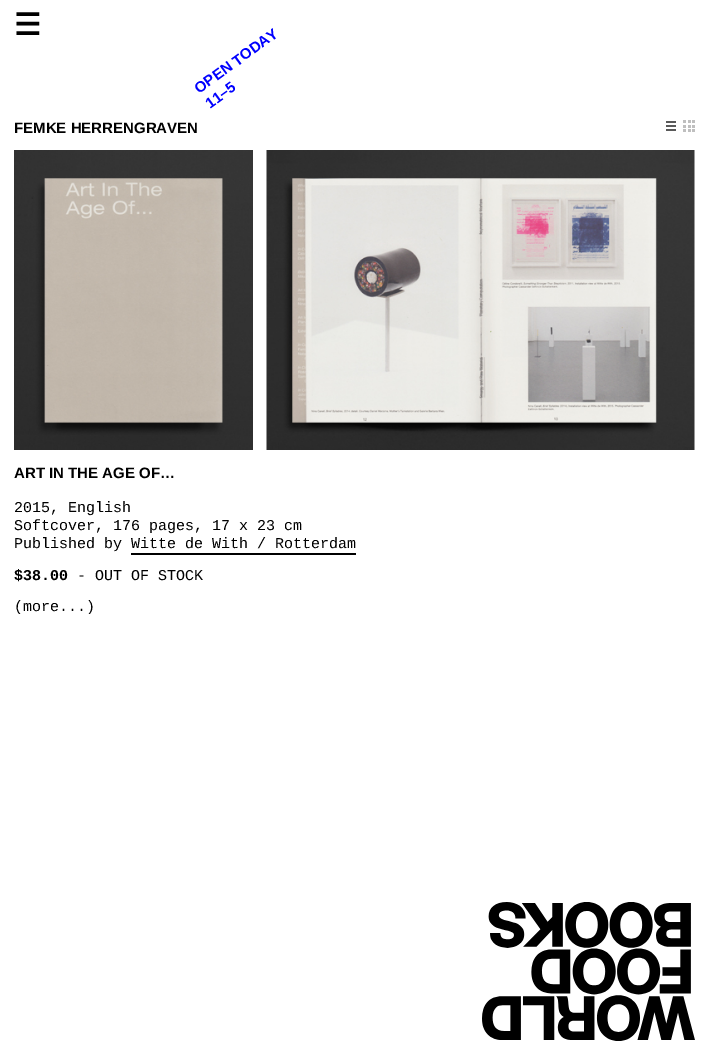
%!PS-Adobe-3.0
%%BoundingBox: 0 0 708 1054
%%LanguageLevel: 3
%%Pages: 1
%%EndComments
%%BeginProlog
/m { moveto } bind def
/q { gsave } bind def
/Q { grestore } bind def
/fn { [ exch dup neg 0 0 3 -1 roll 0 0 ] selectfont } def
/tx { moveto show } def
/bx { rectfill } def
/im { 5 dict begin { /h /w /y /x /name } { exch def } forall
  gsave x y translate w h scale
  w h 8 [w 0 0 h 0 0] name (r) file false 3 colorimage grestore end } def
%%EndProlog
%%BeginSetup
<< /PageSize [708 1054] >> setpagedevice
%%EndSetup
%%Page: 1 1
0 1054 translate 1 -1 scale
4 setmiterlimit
1 setgray
0 0 708 1054 bx
/DejaVuSans-Bold 30 fn
0 setgray
(☰) 14 35 tx
/LiberationSans-Bold 15 fn
0 0 1 setrgbcolor
q 199 94 translate -36 rotate 0 0 m (OPEN TODAY) show Q
q 210 109 translate -36 rotate 0 0 m (11–5) show Q
0 setgray
(FEMKE HERRENGRAVEN) 14 133 tx
0.349 setgray
666 121 10 2 bx
666 125 10 2 bx
666 129 10 2 bx
(image0.raw) 683 120 12 12 im
(image1.raw) 14 150 239 300 im
(image2.raw) 266 150 429 300 im
0 setgray
(ART IN THE AGE OF…) 14 478 tx
/LiberationMono-Regular 15 fn
(2015, English) 14 512 tx
(Softcover, 176 pages, 17 x 23 cm) 14 530 tx
(Published by Witte de With / Rotterdam) 14 548 tx
131 553 225 2 bx
/LiberationMono-Bold 15 fn
($38.00) 14 580 tx
/LiberationMono-Regular 15 fn
(- OUT OF STOCK) 77 580 tx
(\(more...\)) 14 611 tx
(image3.raw) 482 902 213 139 im
showpage
%%EOF
